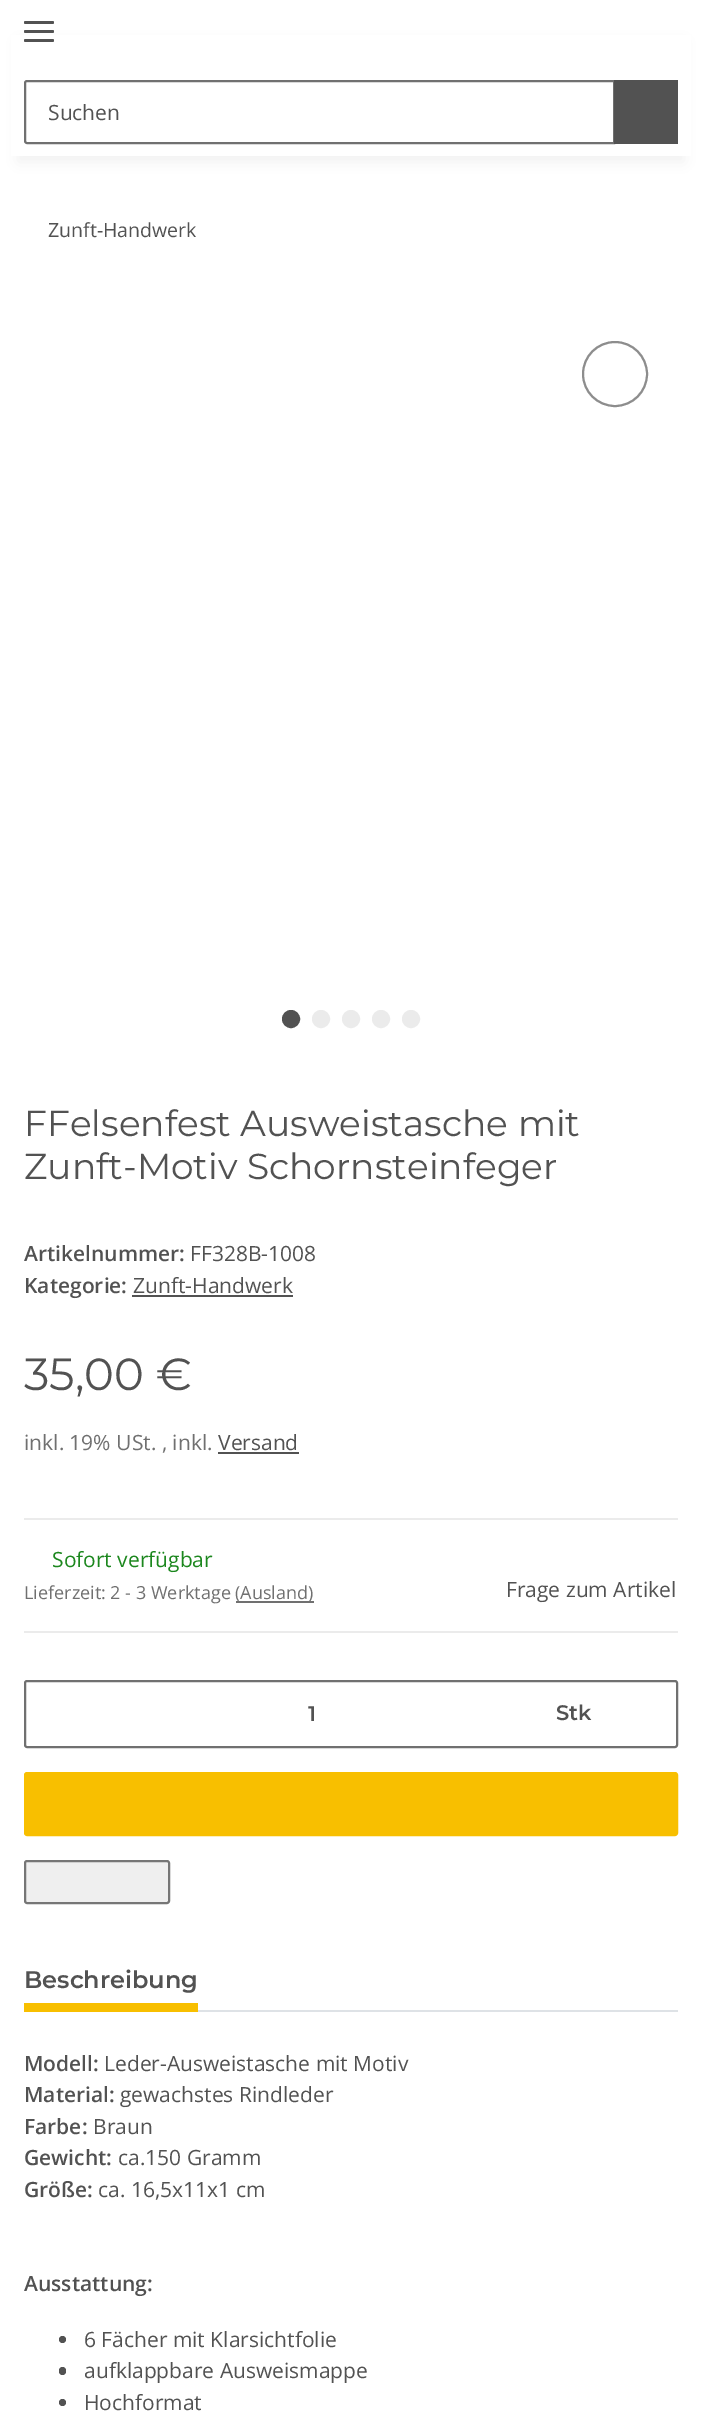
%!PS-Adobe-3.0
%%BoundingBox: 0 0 702 2413
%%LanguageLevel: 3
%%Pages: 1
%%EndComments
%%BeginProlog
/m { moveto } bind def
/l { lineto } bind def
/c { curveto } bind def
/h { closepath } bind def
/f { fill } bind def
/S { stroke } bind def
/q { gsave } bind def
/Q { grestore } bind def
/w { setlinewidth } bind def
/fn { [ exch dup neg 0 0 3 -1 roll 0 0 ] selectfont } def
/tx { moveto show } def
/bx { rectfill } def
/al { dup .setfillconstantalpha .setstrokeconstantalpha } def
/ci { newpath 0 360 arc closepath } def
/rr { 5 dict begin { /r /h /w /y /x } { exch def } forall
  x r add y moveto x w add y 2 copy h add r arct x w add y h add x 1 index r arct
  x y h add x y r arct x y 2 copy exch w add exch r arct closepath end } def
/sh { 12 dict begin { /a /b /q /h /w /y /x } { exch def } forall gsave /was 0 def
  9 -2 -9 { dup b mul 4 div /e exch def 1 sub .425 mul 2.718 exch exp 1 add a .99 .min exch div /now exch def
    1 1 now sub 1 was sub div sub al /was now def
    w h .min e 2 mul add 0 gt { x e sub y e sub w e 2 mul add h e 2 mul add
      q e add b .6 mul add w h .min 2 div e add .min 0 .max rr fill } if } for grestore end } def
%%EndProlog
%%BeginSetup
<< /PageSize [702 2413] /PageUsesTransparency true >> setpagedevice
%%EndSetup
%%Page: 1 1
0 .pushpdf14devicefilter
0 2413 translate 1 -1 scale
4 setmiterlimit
1 setgray
0 0 702 2413 bx
0 setgray
18 42 666 120 0 7 0.06 sh
1 setgray
11 35 680 121 bx
0.322 setgray
24 30 30 3 1.5 rr f
24 21 30 3 1.5 rr f
24 39 30 3 1.5 rr f
0.439 setgray
2 w
27 81 m 614 81 l 614 143 l 27 143 l 26 143 25 142 25 141 c 25 83 l 25 82 26 81 27 81 c h S
/OpenSans-Regular 21 fn
0.322 setgray
(Suchen) 48 120 tx
614 80 64 64 bx
/OpenSans-Regular 19.5 fn
(Zunft-Handwerk) 48 237 tx
0.553 setgray
615 374 32 ci S
0.322 setgray
291 1019 7.5 ci q f Q
3 w
S
0.922 setgray
321 1019 7.5 ci q f Q
S
351 1019 7.5 ci q f Q
S
381 1019 7.5 ci q f Q
S
411 1019 7.5 ci q f Q
S
/Montserrat-Regular 36 fn
0.322 setgray
(FFelsenfest Ausweistasche mit) 24 1136 tx
(Zunft-Motiv Schornsteinfeger) 24 1179 tx
/OpenSans-SemiBold 21 fn
(Artikelnummer:) 24 1261 tx
/OpenSans-Regular 21 fn
(FF328B-1008) 190 1261 tx
/OpenSans-SemiBold 21 fn
(Kategorie:) 24 1293 tx
/OpenSans-Regular 21 fn
(Zunft-Handwerk) 133 1293 tx
132 1295 161 2 bx
/Montserrat-Regular 45 fn
(35,00 €) 24 1390 tx
/OpenSans-Regular 21 fn
0.439 setgray
(inkl. 19% USt. , inkl.) 24 1450 tx
0.322 setgray
(Versand) 218 1450 tx
218 1452 81 2 bx
0.922 setgray
24 1518 654 2 bx
24 1631 654 2 bx
0.11 0.529 0.118 setrgbcolor
(Sofort verfügbar) 52 1567 tx
/OpenSans-Regular 18 fn
0.439 setgray
(Lieferzeit: 2 - 3 Werktage) 24 1599 tx
236 1601 78 2 bx
(\(Ausland\)) 235 1599 tx
/OpenSans-Regular 21 fn
0.322 setgray
(Frage zum Artikel) 506 1597 tx
0.439 setgray
2 w
25 1681 652 66 2 rr S
/Montserrat-SemiBold 21 fn
0.322 setgray
(1) 308 1721 tx
(Stk) 556 1720 tx
0.973 0.749 0 setrgbcolor
25 1773 652 62 2 rr q f Q
S
0.937 setgray
25 1861 144 42 2 rr q f Q
0.463 setgray
S
0.871 0.886 0.902 setrgbcolor
198 2010 480 2 bx
/Montserrat-SemiBold 24 fn
0.322 setgray
(Beschreibung) 24 1988 tx
0.973 0.749 0 setrgbcolor
24 2003 174 9 bx
/OpenSans-SemiBold 21 fn
0.322 setgray
(Modell:) 24 2071 tx
/OpenSans-Regular 21 fn
(Leder-Ausweistasche mit Motiv) 104 2071 tx
/OpenSans-SemiBold 21 fn
(Material:) 24 2102 tx
/OpenSans-Regular 21 fn
(gewachstes Rindleder) 120 2102 tx
/OpenSans-SemiBold 21 fn
(Farbe:) 24 2134 tx
/OpenSans-Regular 21 fn
(Braun) 93 2134 tx
/OpenSans-SemiBold 21 fn
(Gewicht:) 24 2165 tx
/OpenSans-Regular 21 fn
(ca.150 Gramm) 118 2165 tx
/OpenSans-SemiBold 21 fn
(Größe:) 24 2197 tx
/OpenSans-Regular 21 fn
(ca. 16,5x11x1 cm) 98 2197 tx
/OpenSans-SemiBold 21 fn
(Ausstattung:) 24 2291 tx
62.5 2339.5 3.5 ci f
/OpenSans-Regular 21 fn
(6 Fächer mit Klarsichtfolie) 84 2347 tx
59 2367 7 8 3.5 rr f
(aufklappbare Ausweismappe) 84 2378 tx
62.5 2402.5 3.5 ci f
(Hochformat) 84 2410 tx
.poppdf14devicefilter showpage
%%EOF
